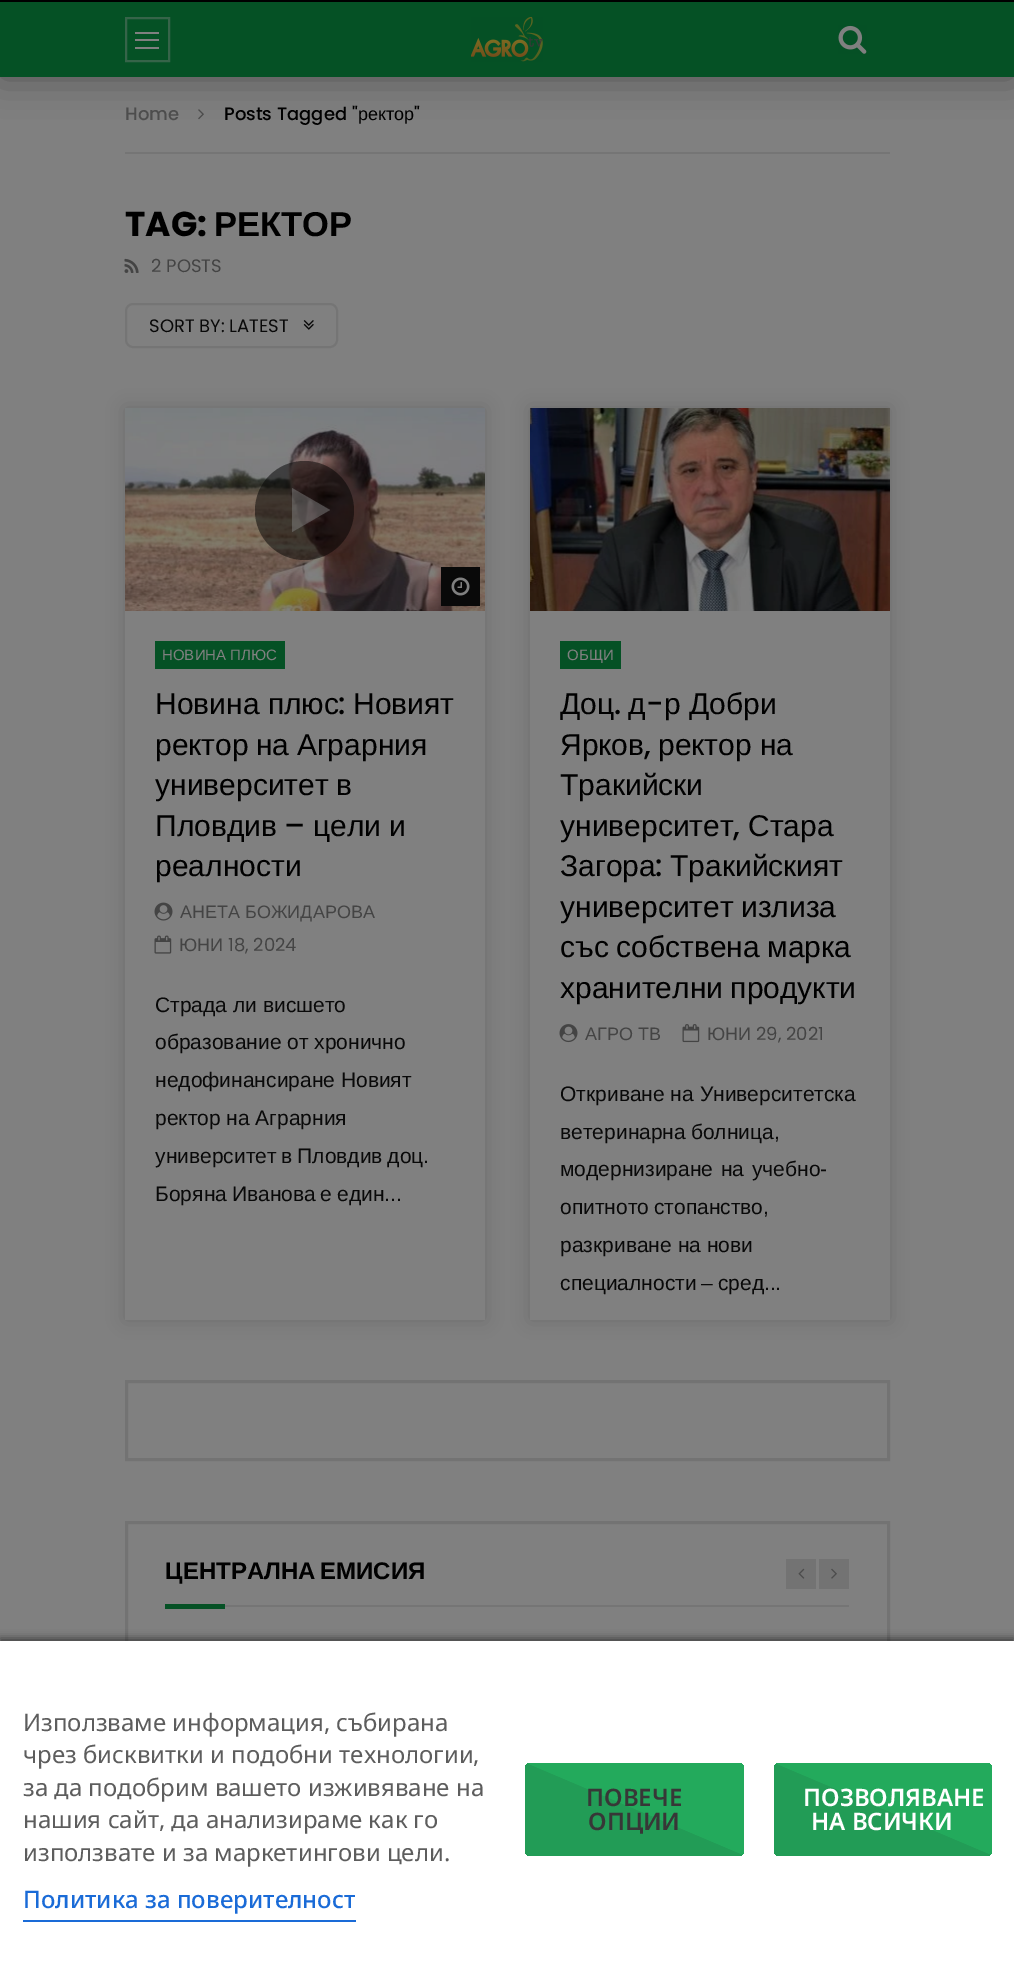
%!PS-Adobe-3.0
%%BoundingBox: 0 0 1014 1977
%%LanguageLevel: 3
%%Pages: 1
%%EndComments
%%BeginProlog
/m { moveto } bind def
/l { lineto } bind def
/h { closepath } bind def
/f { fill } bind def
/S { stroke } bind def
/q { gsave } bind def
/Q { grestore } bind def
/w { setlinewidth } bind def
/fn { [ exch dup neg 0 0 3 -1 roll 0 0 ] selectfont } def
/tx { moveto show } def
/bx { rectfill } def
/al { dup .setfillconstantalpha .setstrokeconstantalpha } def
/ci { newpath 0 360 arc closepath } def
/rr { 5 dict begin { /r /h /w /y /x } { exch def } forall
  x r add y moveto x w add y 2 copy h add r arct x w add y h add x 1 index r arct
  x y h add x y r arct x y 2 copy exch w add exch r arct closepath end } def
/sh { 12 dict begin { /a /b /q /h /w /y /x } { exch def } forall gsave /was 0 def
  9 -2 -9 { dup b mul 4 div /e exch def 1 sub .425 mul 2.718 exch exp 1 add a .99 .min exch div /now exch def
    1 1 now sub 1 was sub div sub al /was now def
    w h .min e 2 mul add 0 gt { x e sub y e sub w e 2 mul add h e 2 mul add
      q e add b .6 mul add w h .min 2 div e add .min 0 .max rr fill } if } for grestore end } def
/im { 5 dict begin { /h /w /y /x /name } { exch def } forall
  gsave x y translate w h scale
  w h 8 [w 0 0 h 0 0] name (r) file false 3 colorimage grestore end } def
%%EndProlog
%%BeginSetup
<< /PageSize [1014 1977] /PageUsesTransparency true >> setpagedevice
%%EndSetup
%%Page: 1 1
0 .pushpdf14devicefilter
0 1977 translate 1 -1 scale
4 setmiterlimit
0.502 setgray
0 0 1014 1977 bx
0 setgray
0 0 1014 2 bx
(image2.raw) 198 109 6 11 im
0 2 1014 75 0 19 0.35 sh
0.02 0.318 0.145 setrgbcolor
0 2 1014 75 bx
0.212 0.392 0.286 setrgbcolor
2 w
126 18 43 43 rectstroke
0.502 setgray
135 32 24 2 bx
135 39 24 2 bx
135 47 24 2 bx
(image0.raw) 471 17 72 45 im
(image1.raw) 838 25 29 29 im
0.459 setgray
125 152 765 2 bx
/Poppins-Medium 18 fn
0.302 setgray
(Home) 125 120 tx
0 setgray
(Posts Tagged ") 224 120 tx
/LiberationSans-Regular 18 fn
(ректор) 358 120 tx
/Poppins-Medium 18 fn
(") 414 120 tx
/Poppins-Bold 34.5 fn
(TAG:) 125 236 tx
/LiberationSans-Bold 34.5 fn
(РЕКТОР) 214 236 tx
(image3.raw) 124 258 15 15 im
/Poppins-Regular 18 fn
0.267 setgray
(2 POSTS) 151 272 tx
0.459 setgray
126 304 211 43 7 rr S
0.035 setgray
(SORT BY: LATEST) 149 332 tx
(image4.raw) 303 320 11 10 im
0 setgray
125 408 360 912 0 9 0.15 sh
0.502 setgray
125 611 360 709 bx
(image5.raw) 125 408 360 203 im
0.5 al
0 setgray
304.5 510.5 49.5 ci f
0.502 setgray
292 532 m 292 488 l 330 510 l h f
1 al
0.035 setgray
441 567 39 39 bx
(image6.raw) 451 577 19 19 im
0.02 0.318 0.145 setrgbcolor
155 641 130 28 bx
/LiberationSans-Regular 15 fn
0.502 setgray
(НОВИНА ПЛЮС) 162 660 tx
/LiberationSans-Regular 30 fn
0 setgray
(Новина плюс) 155 714 tx
/Poppins-Medium 30 fn
(:) 338 714 tx
/LiberationSans-Regular 30 fn
(Новият) 353 714 tx
155 755 m -1 0 32 (ректор на Аграрния) widthshow
155 795 m -1 0 32 (университет в) widthshow
(Пловдив) 155 836 tx
/Poppins-Medium 30 fn
(–) 284 836 tx
/LiberationSans-Regular 30 fn
(цели и) 313 836 tx
(реалности) 155 876 tx
(image7.raw) 154 902 19 19 im
/LiberationSans-Regular 18 fn
0.267 setgray
(АНЕТА БОЖИДАРОВА) 180 918 tx
(image8.raw) 154 935 18 19 im
(ЮНИ) 179 951 tx
/Poppins-Regular 18 fn
(18, 2024) 228 951 tx
/LiberationSans-Regular 21 fn
0.035 setgray
(Страда ли висшето) 155 1012 tx
(образование от хронично) 155 1049 tx
(недофинансиране Новият) 155 1087 tx
(ректор на Аграрния) 155 1125 tx
155 1163 m -1 0 32 (университет в Пловдив доц.) widthshow
155 1201 m -1 0 32 (Боряна Иванова е един...) widthshow
0 setgray
530 408 360 912 0 9 0.15 sh
0.502 setgray
530 611 360 709 bx
(image9.raw) 530 408 360 203 im
0.02 0.318 0.145 setrgbcolor
560 641 61 28 bx
/LiberationSans-Regular 15 fn
0.502 setgray
(ОБЩИ) 567 660 tx
/LiberationSans-Regular 30 fn
0 setgray
(Доц) 560 714 tx
(д) 628 714 tx
/Poppins-Medium 30 fn
(-) 646 714 tx
/LiberationSans-Regular 30 fn
(р Добри) 664 714 tx
/Poppins-Medium 30 fn
(.) 614 714 tx
/LiberationSans-Regular 30 fn
(Ярков) 560 755 tx
/Poppins-Medium 30 fn
(,) 644 755 tx
/LiberationSans-Regular 30 fn
(ректор на) 658 755 tx
(Тракийски) 560 795 tx
(университет) 560 836 tx
/Poppins-Medium 30 fn
(,) 733 836 tx
/LiberationSans-Regular 30 fn
(Стара) 748 836 tx
(Загора) 560 876 tx
/Poppins-Medium 30 fn
(:) 655 876 tx
/LiberationSans-Regular 30 fn
(Тракийският) 670 876 tx
560 917 m -1 0 32 (университет излиза) widthshow
560 957 m -1 0 32 (със собствена марка) widthshow
560 998 m -1 0 32 (хранителни продукти) widthshow
(image10.raw) 559 1024 19 19 im
/LiberationSans-Regular 18 fn
0.267 setgray
(АГРО ТВ) 585 1040 tx
(image11.raw) 682 1024 18 19 im
(ЮНИ) 707 1040 tx
/Poppins-Regular 18 fn
(29, 2021) 756 1040 tx
/LiberationSans-Regular 21 fn
0.035 setgray
(Откриване на Университетска) 560 1101 tx
560 1139 m -1 0 32 (ветеринарна болница,) widthshow
560 1176 m 2 0 32 (модернизиране на учебно-) widthshow
560 1214 m -1 0 32 (опитното стопанство,) widthshow
(разкриване на нови) 560 1252 tx
560 1290 m -1 0 32 (специалности – сред...) widthshow
0.451 setgray
3 w
126.5 1381.5 762 78 rectstroke
126.5 1522.5 762 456 rectstroke
/LiberationSans-Bold 24 fn
0 setgray
165 1579 m -2 0 32 (ЦЕНТРАЛНА ЕМИСИЯ) widthshow
0.451 setgray
786 1559 30 30 bx
(image12.raw) 798 1568 7 11 im
819 1559 30 30 bx
(image13.raw) 831 1568 6 11 im
0.02 0.318 0.145 setrgbcolor
165 1604 60 5 bx
0.459 setgray
225 1605 624 2 bx
0 setgray
0 1638 1014 336 0 4 0.5 sh
1 setgray
0 1641 1014 336 bx
/NotoSans-Regular 24 fn
0.365 setgray
(Използваме информация, събирана) 23 1731 tx
(чрез бисквитки и подобни технологии,) 23 1763 tx
(за да подобрим вашето изживяване на) 23 1796 tx
(нашия сайт, да анализираме как го) 23 1828 tx
(използвате и за маркетингови цели.) 23 1861 tx
/NotoSans-Medium 24 fn
0.102 0.42 0.843 setrgbcolor
(Политика за поверителност) 23 1908 tx
23 1920 333 2 bx
q 525 1763 219 93 6 rr clip newpath
<< /ShadingType 2 /ColorSpace /DeviceRGB /Coords [668 1730 601 1888] /Extend [true true] /Function << /FunctionType 3 /Domain [0 1] /Functions [<< /FunctionType 2 /Domain [0 1] /C0 [0.137 0.667 0.361] /C1 [0.137 0.667 0.361] /N 1 >> << /FunctionType 2 /Domain [0 1] /C0 [0.133 0.612 0.337] /C1 [0.133 0.612 0.337] /N 1 >>] /Bounds [0.5] /Encode [0 1 0 1] >> >> shfill Q
/NotoSans-SemiBold 24 fn
0.216 setgray
(ПОВЕЧЕ) 586 1806 tx
(ОПЦИИ) 588 1830 tx
q 774 1763 218 93 6 rr clip newpath
<< /ShadingType 2 /ColorSpace /DeviceRGB /Coords [916 1730 849 1888] /Extend [true true] /Function << /FunctionType 3 /Domain [0 1] /Functions [<< /FunctionType 2 /Domain [0 1] /C0 [0.137 0.667 0.361] /C1 [0.137 0.667 0.361] /N 1 >> << /FunctionType 2 /Domain [0 1] /C0 [0.133 0.612 0.337] /C1 [0.133 0.612 0.337] /N 1 >>] /Bounds [0.5] /Encode [0 1 0 1] >> >> shfill Q
1 setgray
(ПОЗВОЛЯВАНЕ) 803 1806 tx
(НА ВСИЧКИ) 811 1830 tx
.poppdf14devicefilter showpage
%%EOF
